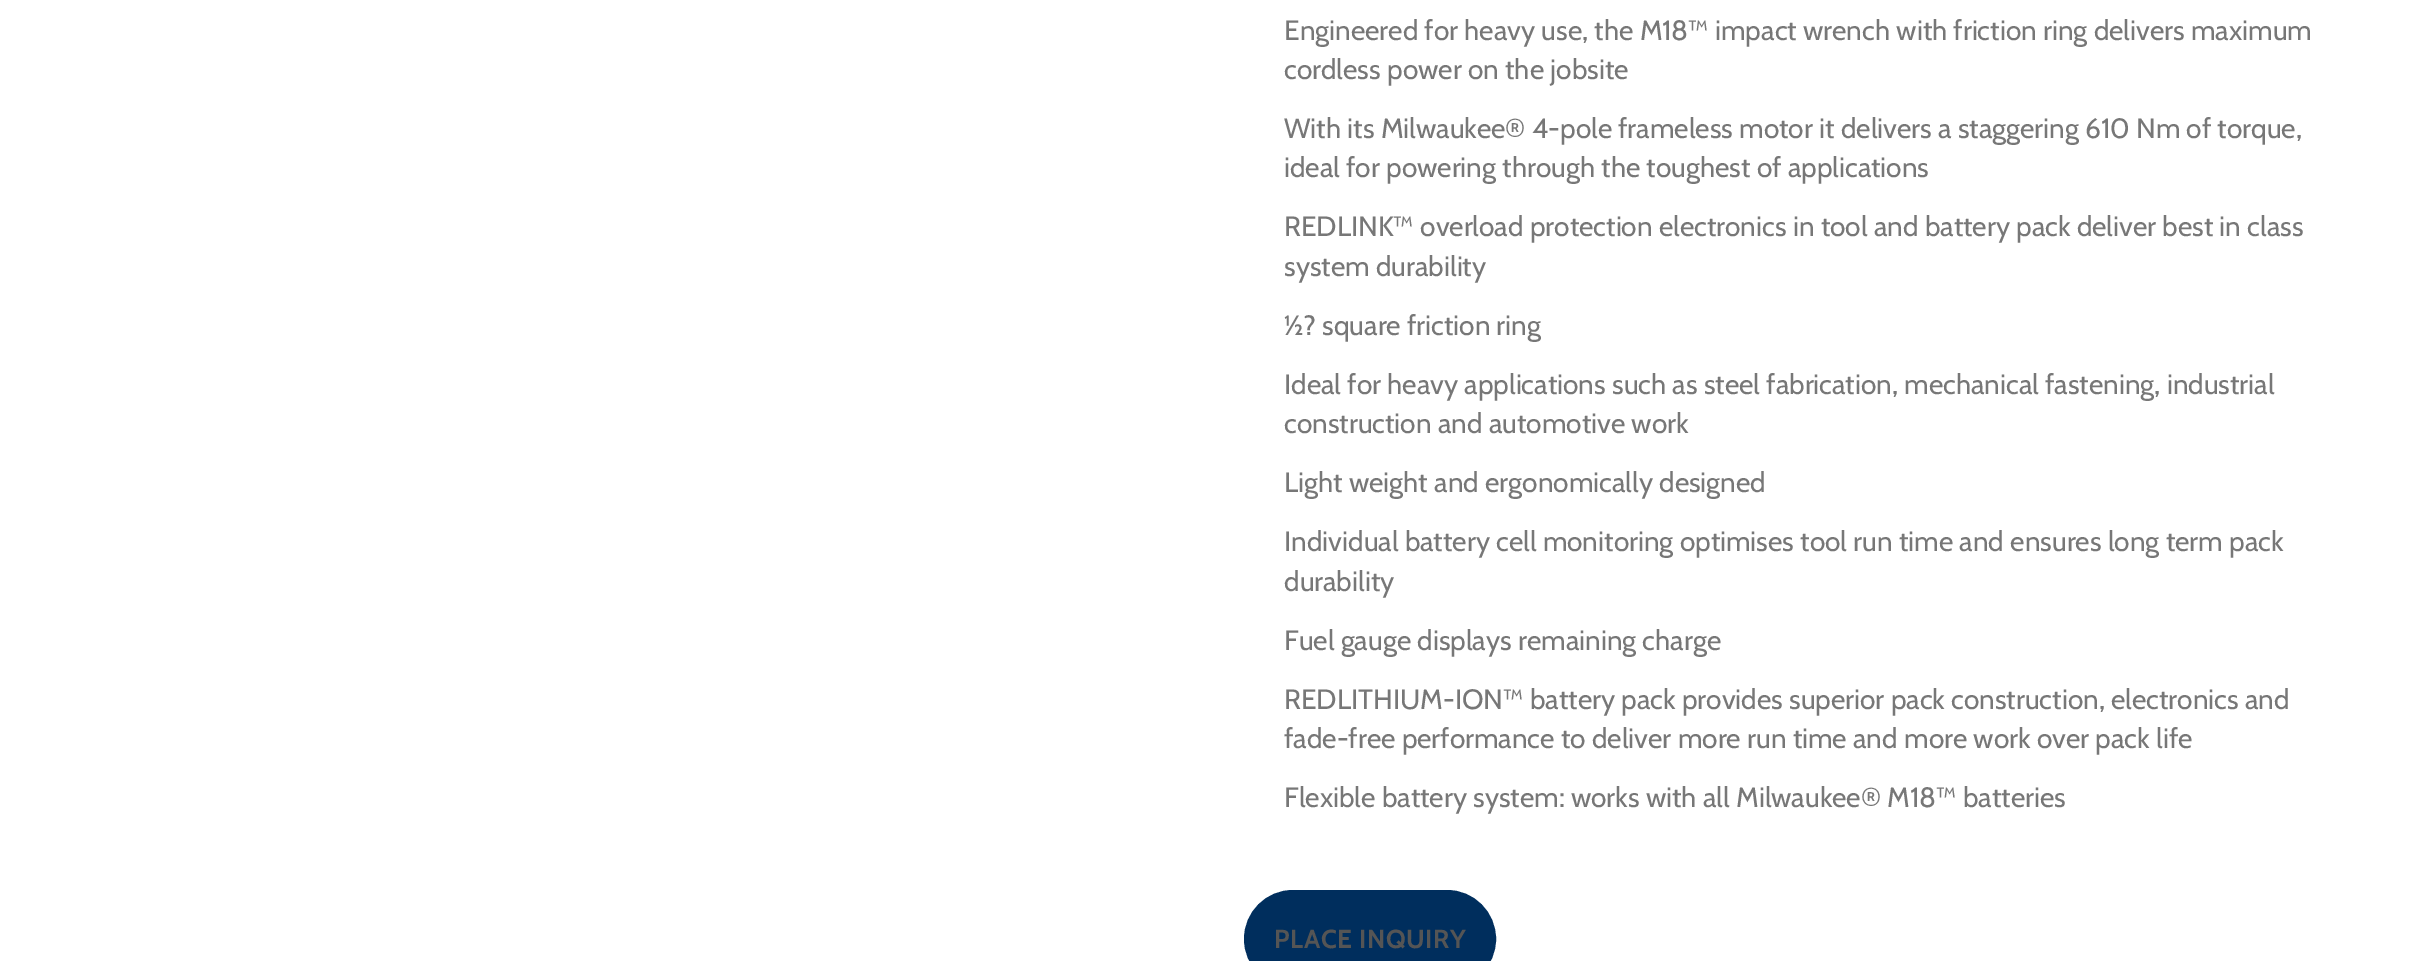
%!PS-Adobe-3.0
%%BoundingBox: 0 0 2427 961
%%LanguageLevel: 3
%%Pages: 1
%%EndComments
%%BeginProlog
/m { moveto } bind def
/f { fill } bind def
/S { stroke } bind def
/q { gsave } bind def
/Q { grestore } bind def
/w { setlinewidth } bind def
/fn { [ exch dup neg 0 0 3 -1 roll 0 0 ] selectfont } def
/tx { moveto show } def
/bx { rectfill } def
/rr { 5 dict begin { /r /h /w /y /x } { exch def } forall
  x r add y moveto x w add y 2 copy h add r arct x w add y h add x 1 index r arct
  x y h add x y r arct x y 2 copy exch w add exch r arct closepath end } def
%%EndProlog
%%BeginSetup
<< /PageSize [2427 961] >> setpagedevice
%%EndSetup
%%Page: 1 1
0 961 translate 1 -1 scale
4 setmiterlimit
1 setgray
0 0 2427 961 bx
/Cabin-Regular 28 fn
0.467 setgray
(Engineered for heavy use, the M18™ impact wrench with friction ring delivers maximum) 1284 40 tx
(cordless power on the jobsite) 1284 79 tx
(With its Milwaukee® 4-pole frameless motor it delivers a staggering 610 Nm of torque,) 1284 138 tx
(ideal for powering through the toughest of applications) 1284 177 tx
(REDLINK™ overload protection electronics in tool and battery pack deliver best in class) 1284 236 tx
(system durability) 1284 276 tx
(½? square friction ring) 1284 335 tx
(Ideal for heavy applications such as steel fabrication, mechanical fastening, industrial) 1284 394 tx
(construction and automotive work) 1284 433 tx
(Light weight and ergonomically designed) 1284 492 tx
(Individual battery cell monitoring optimises tool run time and ensures long term pack) 1284 551 tx
(durability) 1284 591 tx
(Fuel gauge displays remaining charge) 1284 650 tx
(REDLITHIUM-ION™ battery pack provides superior pack construction, electronics and) 1284 709 tx
(fade-free performance to deliver more run time and more work over pack life) 1284 748 tx
(Flexible battery system: works with all Milwaukee® M18™ batteries) 1284 807 tx
0 0.18 0.365 setrgbcolor
1245 891 250 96 48 rr q f Q
2 w
S
/Cabin-Bold 26 fn
0.333 setgray
1274 948 m 0.6 0 (PLACE INQUIRY) ashow
showpage
%%EOF
